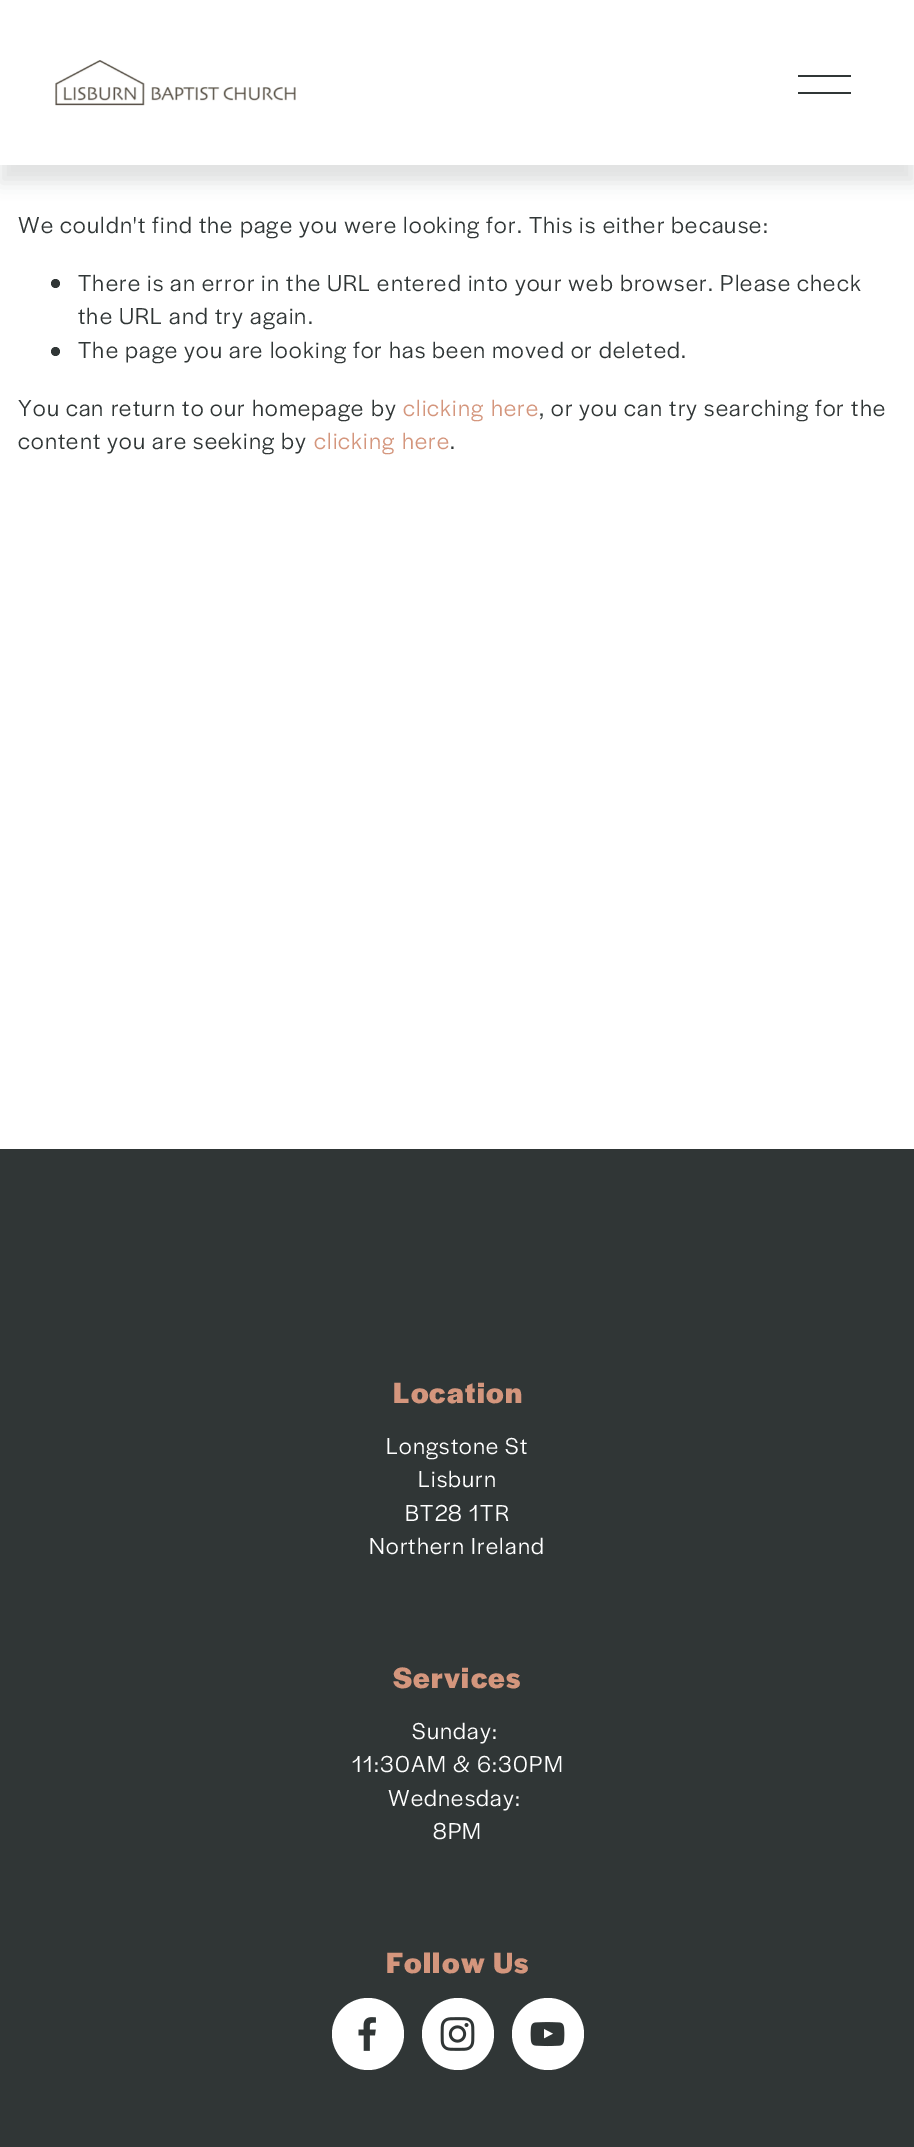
%!PS-Adobe-3.0
%%BoundingBox: 0 0 914 2147
%%LanguageLevel: 3
%%Pages: 1
%%EndComments
%%BeginProlog
/m { moveto } bind def
/f { fill } bind def
/q { gsave } bind def
/Q { grestore } bind def
/fn { [ exch dup neg 0 0 3 -1 roll 0 0 ] selectfont } def
/bx { rectfill } def
/al { dup .setfillconstantalpha .setstrokeconstantalpha } def
/ci { newpath 0 360 arc closepath } def
/rr { 5 dict begin { /r /h /w /y /x } { exch def } forall
  x r add y moveto x w add y 2 copy h add r arct x w add y h add x 1 index r arct
  x y h add x y r arct x y 2 copy exch w add exch r arct closepath end } def
/sh { 12 dict begin { /a /b /q /h /w /y /x } { exch def } forall gsave /was 0 def
  9 -2 -9 { dup b mul 4 div /e exch def 1 sub .425 mul 2.718 exch exp 1 add a .99 .min exch div /now exch def
    1 1 now sub 1 was sub div sub al /was now def
    w h .min e 2 mul add 0 gt { x e sub y e sub w e 2 mul add h e 2 mul add
      q e add b .6 mul add w h .min 2 div e add .min 0 .max rr fill } if } for grestore end } def
/im { 5 dict begin { /h /w /y /x /name } { exch def } forall
  gsave x y translate w h scale
  w h 8 [w 0 0 h 0 0] name (r) file false 3 colorimage grestore end } def
%%EndProlog
%%BeginSetup
<< /PageSize [914 2147] /PageUsesTransparency true >> setpagedevice
%%EndSetup
%%Page: 1 1
0 .pushpdf14devicefilter
0 2147 translate 1 -1 scale
4 setmiterlimit
1 setgray
0 0 914 2147 bx
q
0 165 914 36 rectclip
0.878 0.882 0.882 setrgbcolor
0 18 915 165 0 9 1 sh
Q
(image0.raw) 55 60 241 46 im
0.188 0.212 0.212 setrgbcolor
798 75 53 2 bx
798 92 53 2 bx
/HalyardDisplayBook-Regular 24 fn
18 233 m 1.2 0 (We couldn't find the page you were looking for. This is either because:) ashow
55.5 283.5 4.5 ci f
78 291 m 1.2 0 (There is an error in the URL entered into your web browser. Please check) ashow
78 324 m 1.2 0 (the URL and try again.) ashow
55.5 351.5 4.5 ci f
78 358 m 1.2 0 (The page you are looking for has been moved or deleted.) ashow
18 416 m 1.2 0 (You can return to our homepage by) ashow
0.831 0.588 0.49 setrgbcolor
403 416 m 1.2 0 (clicking here) ashow
0.188 0.212 0.212 setrgbcolor
539 416 m 1.2 0 (, or you can try searching for the) ashow
18 449 m 1.2 0 (content you are seeking by) ashow
0.831 0.588 0.49 setrgbcolor
314 449 m 1.2 0 (clicking here) ashow
0.188 0.212 0.212 setrgbcolor
450 449 m 1.2 0 (.) ashow
0 1149 914 998 bx
/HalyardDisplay-Bold 30.5 fn
0.831 0.588 0.49 setrgbcolor
393 1403 m 1.2 0 (Location) ashow
/HalyardDisplayBook-Regular 24 fn
1 setgray
386 1454 m 1.2 0 (Longstone St) ashow
418 1487 m 1.2 0 (Lisburn) ashow
405 1521 m 1.2 0 (BT28 1TR) ashow
369 1554 m 1.2 0 (Northern Ireland) ashow
/HalyardDisplay-Bold 30.5 fn
0.831 0.588 0.49 setrgbcolor
393 1688 m 1.2 0 (Services) ashow
/HalyardDisplayBook-Regular 24 fn
1 setgray
412 1739 m 1.2 0 (Sunday:) ashow
352 1772 m 1.2 0 (11:30AM & 6:30PM) ashow
388 1806 m 1.2 0 (Wednesday:) ashow
433 1839 m 1.2 0 (8PM) ashow
/HalyardDisplay-Bold 30.5 fn
0.831 0.588 0.49 setrgbcolor
386 1973 m 1.2 0 (Follow Us) ashow
1 setgray
368 2034 36 ci f
(image1.raw) 358 2017 18 34 im
458 2034 36 ci f
(image2.raw) 440 2017 35 34 im
548 2034 36 ci f
(image3.raw) 530 2022 35 25 im
.poppdf14devicefilter showpage
%%EOF
